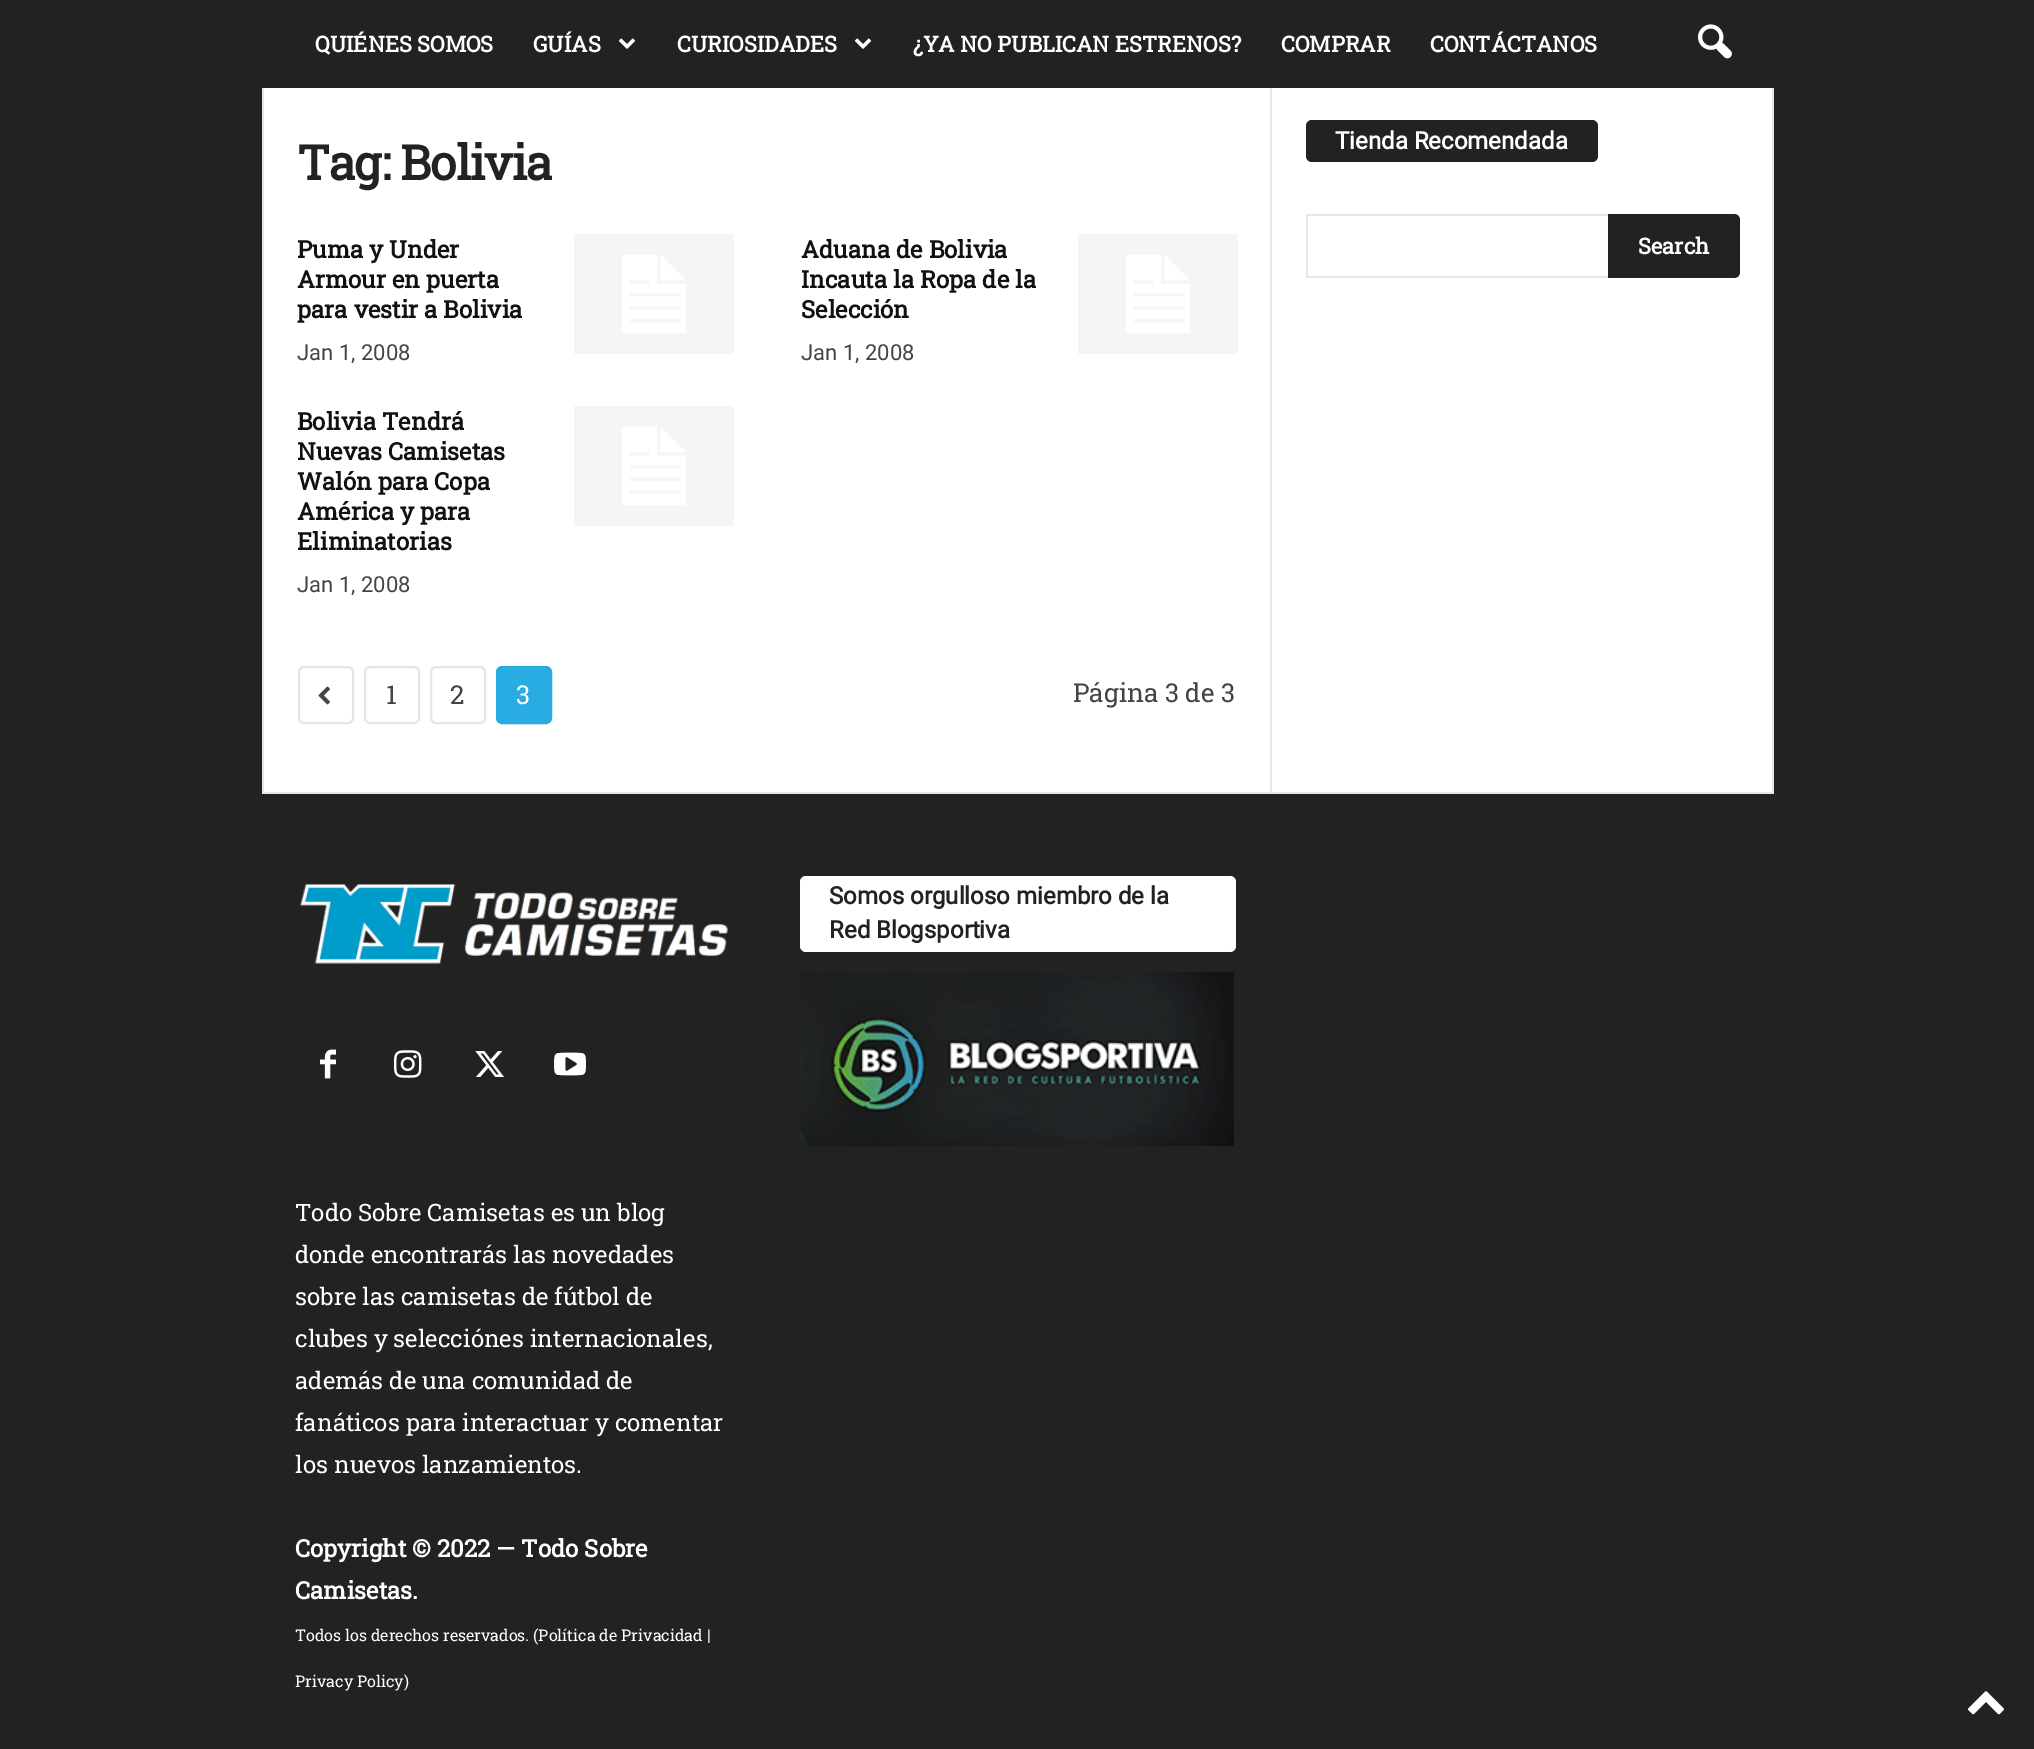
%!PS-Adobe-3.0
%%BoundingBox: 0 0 2034 1749
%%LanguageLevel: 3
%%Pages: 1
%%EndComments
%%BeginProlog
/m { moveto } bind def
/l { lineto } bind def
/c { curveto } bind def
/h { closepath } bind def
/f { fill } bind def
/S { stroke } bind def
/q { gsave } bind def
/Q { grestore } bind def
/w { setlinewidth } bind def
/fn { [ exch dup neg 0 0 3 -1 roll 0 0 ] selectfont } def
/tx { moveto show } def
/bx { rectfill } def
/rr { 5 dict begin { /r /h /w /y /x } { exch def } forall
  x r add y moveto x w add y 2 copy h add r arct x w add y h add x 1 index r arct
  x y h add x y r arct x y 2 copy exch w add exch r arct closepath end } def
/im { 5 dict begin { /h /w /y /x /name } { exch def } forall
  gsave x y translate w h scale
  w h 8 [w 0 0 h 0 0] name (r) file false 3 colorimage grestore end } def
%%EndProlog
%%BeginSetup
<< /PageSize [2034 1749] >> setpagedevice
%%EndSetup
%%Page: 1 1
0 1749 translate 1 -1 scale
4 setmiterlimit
0.133 setgray
0 0 2034 1749 bx
/RobotoSlab-Bold 22 fn
1 setgray
(QUIÉNES SOMOS) 315 52 tx
(GUÍAS) 533 52 tx
(image0.raw) 618 38 18 11 im
(CURIOSIDADES) 677 52 tx
(image0.raw) 854 38 18 11 im
(¿YA NO PUBLICAN ESTRENOS?) 913 52 tx
(COMPRAR) 1281 52 tx
(CONTÁCTANOS) 1430 52 tx
(image1.raw) 1698 24 34 35 im
264 88 1508 704 bx
0.902 setgray
262 792 1512 2 bx
262 88 2 704 bx
/RobotoSlab-Bold 48 fn
0.133 setgray
297 180 m -1 0 (Tag: Bolivia) ashow
/RobotoSlab-Bold 24 fn
0.067 setgray
(Puma y Under) 297 258 tx
(Armour en puerta) 297 288 tx
(para vestir a Bolivia) 297 318 tx
/Roboto-Regular 22 fn
0.267 setgray
(Jan 1, 2008) 297 360 tx
(image2.raw) 574 234 160 120 im
/RobotoSlab-Bold 24 fn
0.067 setgray
(Aduana de Bolivia) 801 258 tx
(Incauta la Ropa de la) 801 288 tx
(Selección) 801 318 tx
/Roboto-Regular 22 fn
0.267 setgray
(Jan 1, 2008) 801 360 tx
(image2.raw) 1078 234 160 120 im
/RobotoSlab-Bold 24 fn
0.067 setgray
(Bolivia Tendrá) 297 430 tx
(Nuevas Camisetas) 297 460 tx
(Walón para Copa) 297 490 tx
(América y para) 297 520 tx
(Eliminatorias) 297 550 tx
/Roboto-Regular 22 fn
0.267 setgray
(Jan 1, 2008) 297 592 tx
(image2.raw) 574 406 160 120 im
0.902 setgray
2 w
299 667 54 56 5 rr S
(image3.raw) 318 686 12 19 im
365 667 54 56 5 rr S
/RobotoSlab-Regular 26 fn
0.267 setgray
(1) 386 704 tx
0.902 setgray
431 667 54 56 5 rr S
0.267 setgray
(2) 450 704 tx
0.157 0.675 0.886 setrgbcolor
497 667 54 56 5 rr q f Q
S
1 setgray
(3) 516 704 tx
0.267 setgray
(Página 3 de 3) 1073 702 tx
0.902 setgray
1270 88 2 704 bx
0.133 setgray
1306 120 292 42 6 rr f
/Roboto-Bold 24 fn
1 setgray
(Tienda Recomendada) 1335 149 tx
0.902 setgray
1306 214 302 2 bx
1306 276 302 2 bx
1306 214 2 64 bx
0.133 setgray
1608 214 m 1734 214 l 1737.5 214 1740 216.5 1740 220 c 1740 272 l 1740 275.5 1737.5 278 1734 278 c 1608 278 l h f
/RobotoSlab-Bold 22 fn
1 setgray
(Search) 1638 254 tx
0.902 setgray
1772 88 2 704 bx
1 setgray
800 876 436 76 6 rr f
/Roboto-Bold 24 fn
0.133 setgray
(Somos orgulloso miembro de la) 829 904 tx
(Red Blogsportiva) 829 938 tx
(image4.raw) 800 972 434 174 im
(image5.raw) 300 884 428 80 im
(image6.raw) 320 1049 16 30 im
(image7.raw) 394 1050 28 28 im
(image8.raw) 475 1051 29 26 im
(image9.raw) 554 1052 32 24 im
/RobotoSlab-Regular 24 fn
1 setgray
(Todo Sobre Camisetas es un blog) 295 1221 tx
(donde encontrarás las novedades) 295 1263 tx
(sobre las camisetas de fútbol de) 295 1305 tx
(clubes y selecciónes internacionales,) 295 1347 tx
(además de una comunidad de) 295 1389 tx
(fanáticos para interactuar y comentar) 295 1431 tx
(los nuevos lanzamientos.) 295 1473 tx
/RobotoSlab-Bold 24 fn
(Copyright © 2022 — Todo Sobre) 295 1557 tx
(Camisetas.) 295 1599 tx
/RobotoSlab-Regular 16 fn
(Todos los derechos reservados. \(Política de Privacidad |) 295 1641 tx
(Privacy Policy\)) 295 1687 tx
(image10.raw) 1968 1691 36 24 im
showpage
%%EOF
